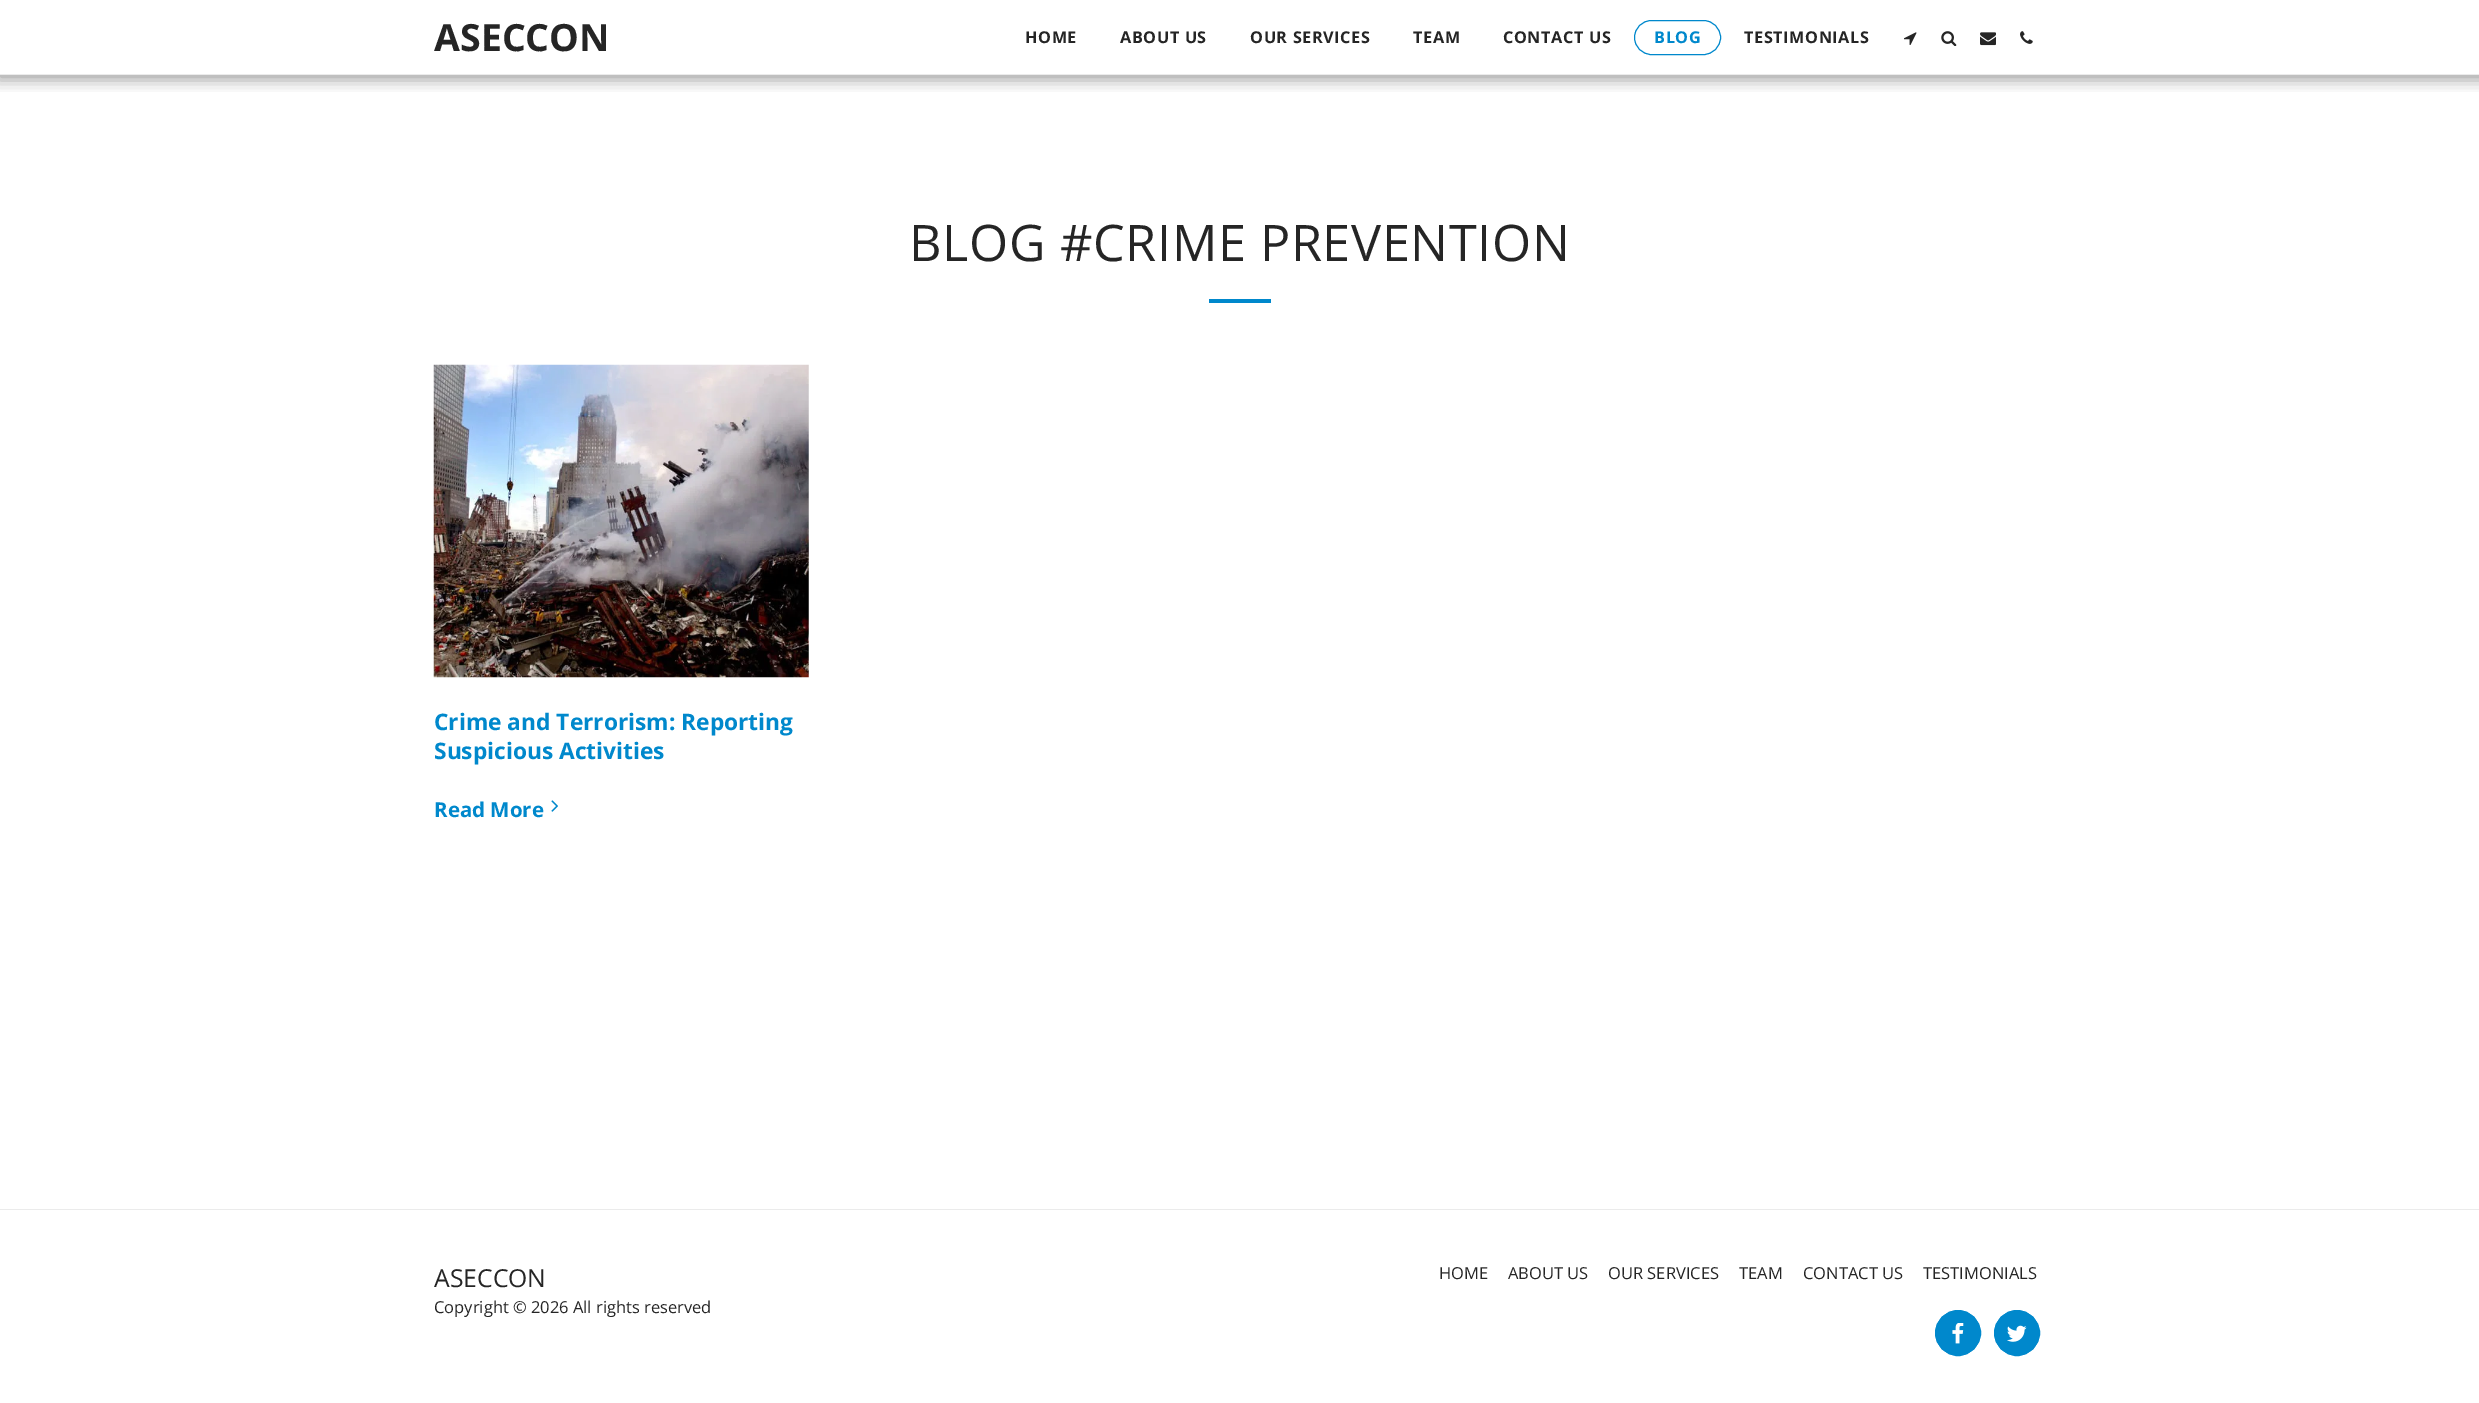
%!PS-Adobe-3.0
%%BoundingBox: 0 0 2479 1403
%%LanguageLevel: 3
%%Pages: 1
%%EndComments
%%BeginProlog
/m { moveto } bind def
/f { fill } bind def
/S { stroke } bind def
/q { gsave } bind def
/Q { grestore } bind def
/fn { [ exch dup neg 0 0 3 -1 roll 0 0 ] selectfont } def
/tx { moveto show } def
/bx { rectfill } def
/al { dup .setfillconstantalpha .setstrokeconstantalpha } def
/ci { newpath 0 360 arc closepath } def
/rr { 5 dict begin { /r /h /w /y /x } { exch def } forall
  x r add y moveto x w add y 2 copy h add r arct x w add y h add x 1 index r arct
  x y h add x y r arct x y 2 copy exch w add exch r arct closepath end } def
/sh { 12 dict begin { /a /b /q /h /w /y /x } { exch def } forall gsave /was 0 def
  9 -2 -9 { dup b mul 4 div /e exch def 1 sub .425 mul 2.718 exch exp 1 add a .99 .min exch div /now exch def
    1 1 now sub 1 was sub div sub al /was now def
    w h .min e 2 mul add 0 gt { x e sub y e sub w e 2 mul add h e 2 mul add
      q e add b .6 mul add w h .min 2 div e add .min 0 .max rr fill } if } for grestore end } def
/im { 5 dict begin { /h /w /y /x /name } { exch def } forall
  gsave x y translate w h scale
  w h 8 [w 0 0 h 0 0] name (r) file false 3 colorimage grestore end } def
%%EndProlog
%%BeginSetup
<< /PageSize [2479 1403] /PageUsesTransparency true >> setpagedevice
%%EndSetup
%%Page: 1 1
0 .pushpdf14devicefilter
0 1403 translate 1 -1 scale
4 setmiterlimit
1 setgray
0 0 2479 1403 bx
q
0 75 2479 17 rectclip
0 setgray
-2 0 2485 80 0 7.5 0.35 sh
Q
0.922 setgray
0 74 2479 1 bx
/OpenSans-Bold 37.5 fn
0.145 setgray
(ASECCON) 434 51 tx
/OpenSans-Bold 16.25 fn
1025 43 m 0.6 0 (HOME) ashow
1120 43 m 0.6 0 (ABOUT US) ashow
1250 43 m 0.6 0 (OUR SERVICES) ashow
1413 43 m 0.6 0 (TEAM) ashow
1503 43 m 0.6 0 (CONTACT US) ashow
0 0.533 0.8 setrgbcolor
1634.5 20.5 86 34 17 rr S
1654 43 m 0.6 0 (BLOG) ashow
0.145 setgray
1744 43 m 0.6 0 (TESTIMONIALS) ashow
(image0.raw) 1904 32 13 13 im
(image1.raw) 1941 31 16 15 im
(image2.raw) 1980 32 16 14 im
(image3.raw) 2020 31 13 13 im
/OpenSans-Regular 50.4 fn
909 261 m 0.6 0 (BLOG #CRIME PREVENTION) ashow
0 0.533 0.8 setrgbcolor
1209 299 62 4 bx
(image4.raw) 433 364 376 314 im
/OpenSans-Bold 22.75 fn
(Crime and Terrorism: Reporting) 434 730 tx
(Suspicious Activities) 434 759 tx
/OpenSans-Bold 20.5 fn
(Read More) 434 817 tx
(image5.raw) 551 800 7 12 im
0.922 setgray
0 1209 2479 1 bx
/OpenSans-Regular 24.75 fn
0.145 setgray
(ASECCON) 434 1287 tx
/OpenSans-Regular 16.5 fn
(Copyright © 2026 All rights reserved) 434 1313 tx
(HOME) 1439 1279 tx
(ABOUT US) 1508 1279 tx
(OUR SERVICES) 1608 1279 tx
(TEAM) 1739 1279 tx
(CONTACT US) 1803 1279 tx
(TESTIMONIALS) 1923 1279 tx
0 0.533 0.8 setrgbcolor
1958 1333 22.5 ci q f Q
S
(image6.raw) 1952 1323 12 21 im
2017 1333 22.5 ci q f Q
S
(image7.raw) 2007 1325 20 17 im
.poppdf14devicefilter showpage
%%EOF
